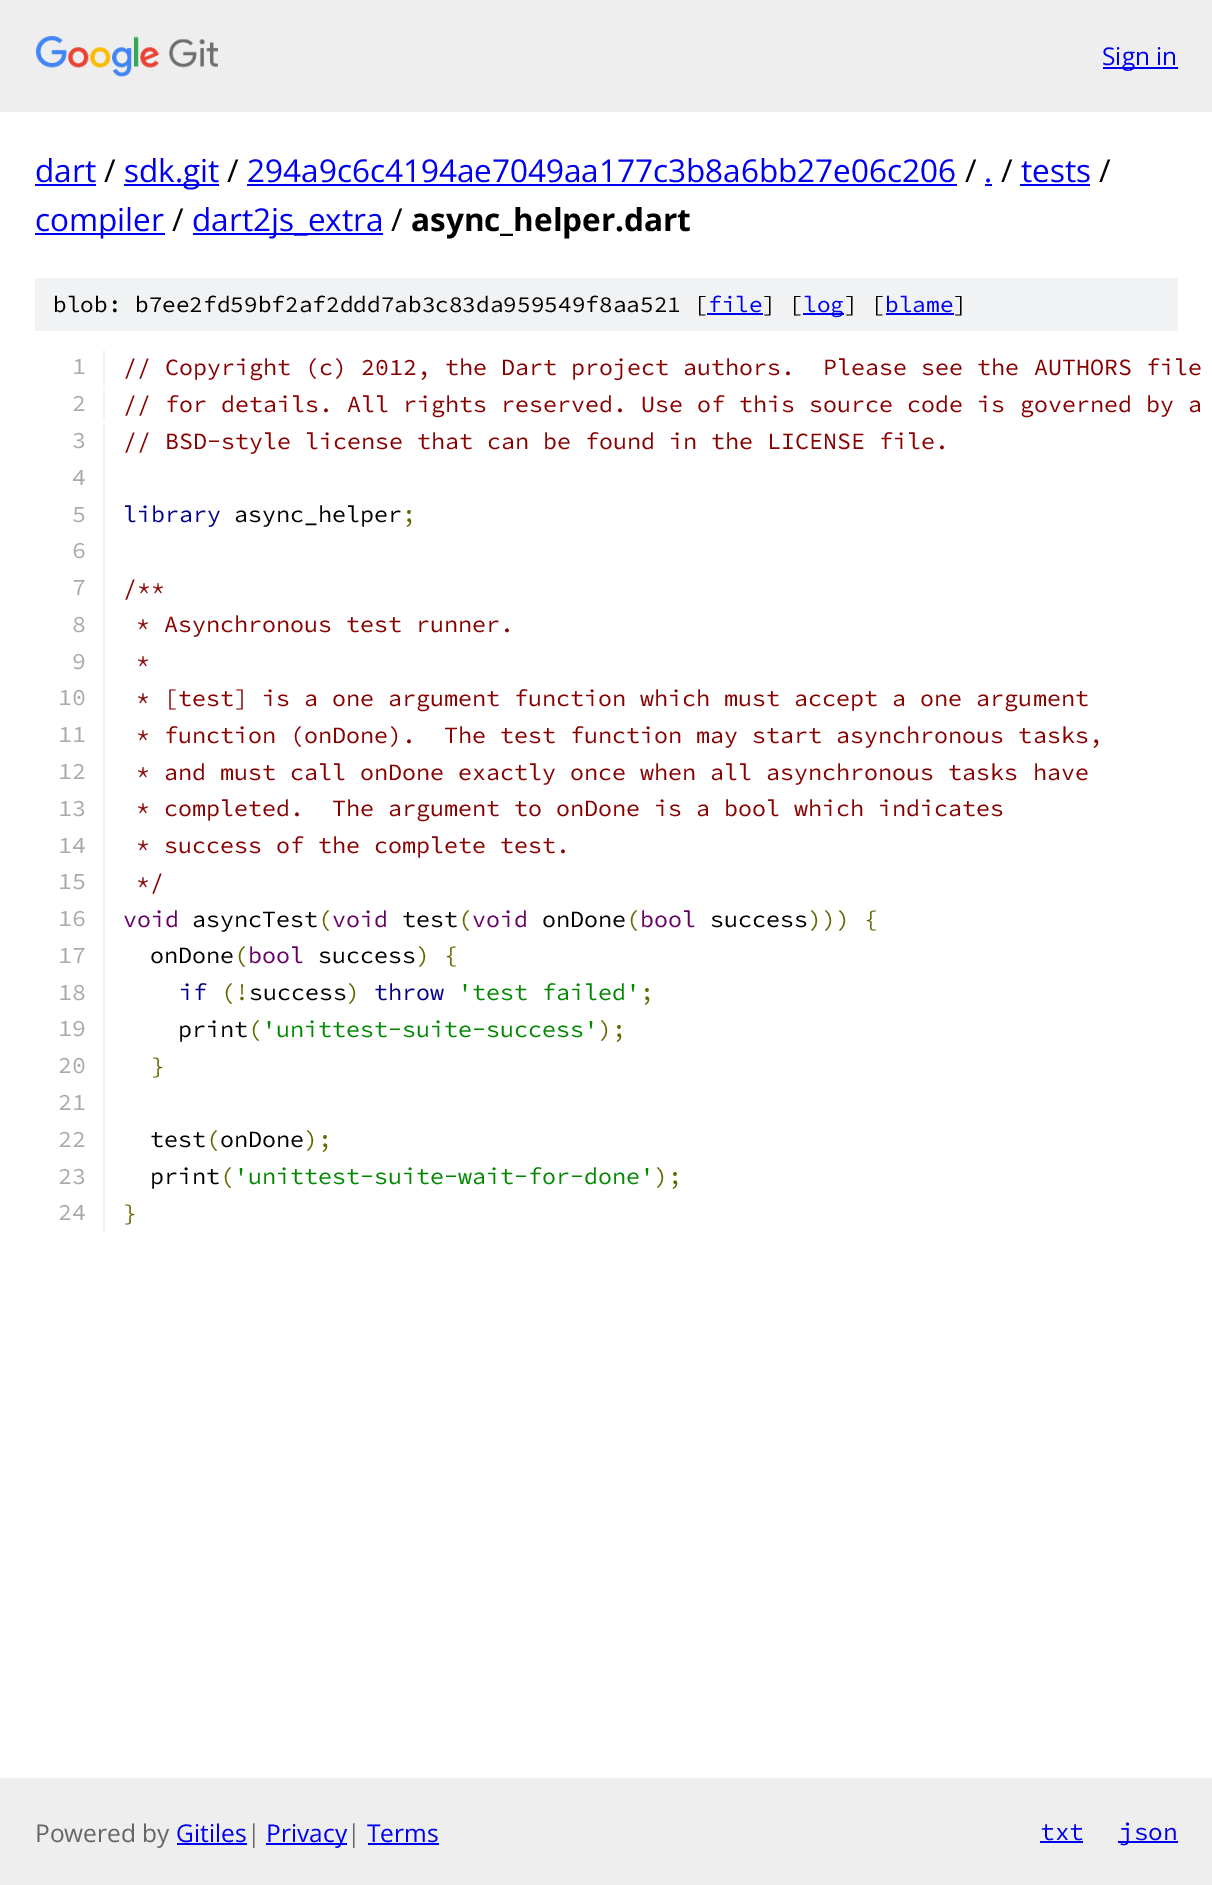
%!PS-Adobe-3.0
%%BoundingBox: 0 0 1212 1885
%%LanguageLevel: 3
%%Pages: 1
%%EndComments
%%BeginProlog
/fn { [ exch dup neg 0 0 3 -1 roll 0 0 ] selectfont } def
/tx { moveto show } def
/bx { rectfill } def
/im { 5 dict begin { /h /w /y /x /name } { exch def } forall
  gsave x y translate w h scale
  w h 8 [w 0 0 h 0 0] name (r) file false 3 colorimage grestore end } def
%%EndProlog
%%BeginSetup
<< /PageSize [1212 1885] >> setpagedevice
%%EndSetup
%%Page: 1 1
0 1885 translate 1 -1 scale
4 setmiterlimit
1 setgray
0 0 1212 1885 bx
0.933 setgray
0 0 1212 112 bx
(image0.raw) 35 35 183 42 im
0 0 0.933 setrgbcolor
1103 67 75 2 bx
/OpenSans-Regular 24.5 fn
(Sign in) 1102 65 tx
/OpenSans-Regular 31.5 fn
(dart) 35 182 tx
35 184 61 2 bx
0 setgray
(/) 104 182 tx
0 0 0.933 setrgbcolor
124 184 95 2 bx
(sdk.git) 124 182 tx
0 setgray
(/) 227 182 tx
0 0 0.933 setrgbcolor
(294a9c6c4194ae7049aa177c3b8a6bb27e06c206) 247 182 tx
247 184 710 2 bx
0 setgray
(/) 965 182 tx
0 0 0.933 setrgbcolor
(.) 984 182 tx
985 184 7 2 bx
0 setgray
(/) 1001 182 tx
0 0 0.933 setrgbcolor
(tests) 1021 182 tx
1020 184 70 2 bx
0 setgray
(/) 1099 182 tx
0 0 0.933 setrgbcolor
35 233 130 2 bx
(compiler) 35 231 tx
0 setgray
(/) 172 231 tx
0 0 0.933 setrgbcolor
193 233 190 2 bx
(dart2js_extra) 192 231 tx
0 setgray
(/) 391 231 tx
/OpenSans-Bold 31.5 fn
(async_helper.dart) 411 231 tx
0.945 0.949 0.953 setrgbcolor
35 278 1143 53 bx
/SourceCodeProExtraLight-ExtraLight 22.75 fn
0 setgray
(blob: b7ee2fd59bf2af2ddd7ab3c83da959549f8aa521 [) 53 312 tx
0 0 0.933 setrgbcolor
(file) 708 312 tx
707 313 56 2 bx
0 setgray
(] [) 762 312 tx
0 0 0.933 setrgbcolor
803 313 41 2 bx
(log) 803 312 tx
0 setgray
(] [) 844 312 tx
0 0 0.933 setrgbcolor
(blame) 885 312 tx
886 313 68 2 bx
0 setgray
(]) 953 312 tx
0.945 0.949 0.953 setrgbcolor
103 350 2 35 bx
/SourceCodeProExtraLight-ExtraLight 23.35 fn
0.667 setgray
(1) 72 374 tx
0.533 0 0 setrgbcolor
(// Copyright \(c\) 2012, the Dart project authors.  Please see the AUTHORS file) 123 375 tx
0.945 0.949 0.953 setrgbcolor
103 387 2 35 bx
0.667 setgray
(2) 72 411 tx
0.533 0 0 setrgbcolor
(// for details. All rights reserved. Use of this source code is governed by a) 123 412 tx
0.945 0.949 0.953 setrgbcolor
103 424 2 808 bx
0.667 setgray
(3) 72 448 tx
0.533 0 0 setrgbcolor
(// BSD-style license that can be found in the LICENSE file.) 123 449 tx
0.667 setgray
(4) 72 485 tx
(5) 72 522 tx
0 0 0.533 setrgbcolor
(library) 123 522 tx
0 setgray
(async_helper) 234 522 tx
0.4 0.4 0 setrgbcolor
(;) 402 522 tx
0.667 setgray
(6) 72 558 tx
(7) 72 595 tx
0.533 0 0 setrgbcolor
(/**) 123 596 tx
0.667 setgray
(8) 72 632 tx
0.533 0 0 setrgbcolor
(* Asynchronous test runner.) 136 632 tx
0.667 setgray
(9) 72 669 tx
0.533 0 0 setrgbcolor
(*) 136 669 tx
0.667 setgray
(10) 58 705 tx
0.533 0 0 setrgbcolor
(* [test] is a one argument function which must accept a one argument) 136 706 tx
0.667 setgray
(11) 58 742 tx
0.533 0 0 setrgbcolor
(* function \(onDone\).  The test function may start asynchronous tasks,) 136 743 tx
0.667 setgray
(12) 58 779 tx
0.533 0 0 setrgbcolor
(* and must call onDone exactly once when all asynchronous tasks have) 136 780 tx
0.667 setgray
(13) 58 816 tx
0.533 0 0 setrgbcolor
(* completed.  The argument to onDone is a bool which indicates) 136 816 tx
0.667 setgray
(14) 58 853 tx
0.533 0 0 setrgbcolor
(* success of the complete test.) 136 853 tx
0.667 setgray
(15) 58 889 tx
0.533 0 0 setrgbcolor
(*/) 136 890 tx
0.667 setgray
(16) 58 926 tx
0.4 0 0.4 setrgbcolor
(void) 123 927 tx
0 setgray
(asyncTest) 192 927 tx
0.4 0.4 0 setrgbcolor
(\() 318 927 tx
0.4 0 0.4 setrgbcolor
(void) 332 927 tx
0 setgray
(test) 402 927 tx
0.4 0.4 0 setrgbcolor
(\() 458 927 tx
0.4 0 0.4 setrgbcolor
(void) 472 927 tx
0 setgray
(onDone) 542 927 tx
0.4 0.4 0 setrgbcolor
(\() 626 927 tx
0.4 0 0.4 setrgbcolor
(bool) 640 927 tx
0 setgray
(success) 710 927 tx
0.4 0.4 0 setrgbcolor
(\)\)\) {) 808 927 tx
0.667 setgray
(17) 58 963 tx
0 setgray
(onDone) 150 963 tx
0.4 0.4 0 setrgbcolor
(\() 234 963 tx
0.4 0 0.4 setrgbcolor
(bool) 248 963 tx
0 setgray
(success) 318 963 tx
0.4 0.4 0 setrgbcolor
(\) {) 416 963 tx
0.667 setgray
(18) 58 1000 tx
0 0 0.533 setrgbcolor
(if) 179 1000 tx
0.4 0.4 0 setrgbcolor
(\(!) 221 1000 tx
0 setgray
(success) 249 1000 tx
0.4 0.4 0 setrgbcolor
(\)) 346 1000 tx
0 0 0.533 setrgbcolor
(throw) 374 1000 tx
0 0.533 0 setrgbcolor
('test failed') 458 1000 tx
0.4 0.4 0 setrgbcolor
(;) 640 1000 tx
0.667 setgray
(19) 58 1036 tx
0 setgray
(print) 178 1037 tx
0.4 0.4 0 setrgbcolor
(\() 248 1037 tx
0 0.533 0 setrgbcolor
('unittest-suite-success') 262 1037 tx
0.4 0.4 0 setrgbcolor
(\);) 598 1037 tx
0.667 setgray
(20) 58 1073 tx
0.4 0.4 0 setrgbcolor
(}) 151 1074 tx
0.667 setgray
(21) 58 1110 tx
(22) 58 1147 tx
0 setgray
(test onDone) 150 1147 tx
0.4 0.4 0 setrgbcolor
(\() 206 1147 tx
(\);) 304 1147 tx
0.667 setgray
(23) 58 1184 tx
0 setgray
(print) 150 1184 tx
0.4 0.4 0 setrgbcolor
(\() 220 1184 tx
0 0.533 0 setrgbcolor
('unittest-suite-wait-for-done') 234 1184 tx
0.4 0.4 0 setrgbcolor
(\);) 654 1184 tx
0.667 setgray
(24) 58 1220 tx
0.4 0.4 0 setrgbcolor
(}) 123 1221 tx
0.933 setgray
0 1778 1212 107 bx
/OpenSans-Regular 24.5 fn
0.4 setgray
(Powered by) 35 1842 tx
0 0 0.933 setrgbcolor
(Gitiles) 176 1842 tx
177 1843 70 2 bx
0.4 setgray
(|) 247 1842 tx
0 0 0.933 setrgbcolor
266 1843 81 2 bx
(Privacy) 266 1842 tx
0.4 setgray
(|) 347 1842 tx
0 0 0.933 setrgbcolor
(Terms) 367 1842 tx
368 1843 71 2 bx
/SourceCodeProExtraLight-ExtraLight 24.5 fn
(txt) 1040 1840 tx
1040 1841 43 2 bx
1118 1841 60 2 bx
(json) 1119 1840 tx
showpage
%%EOF
